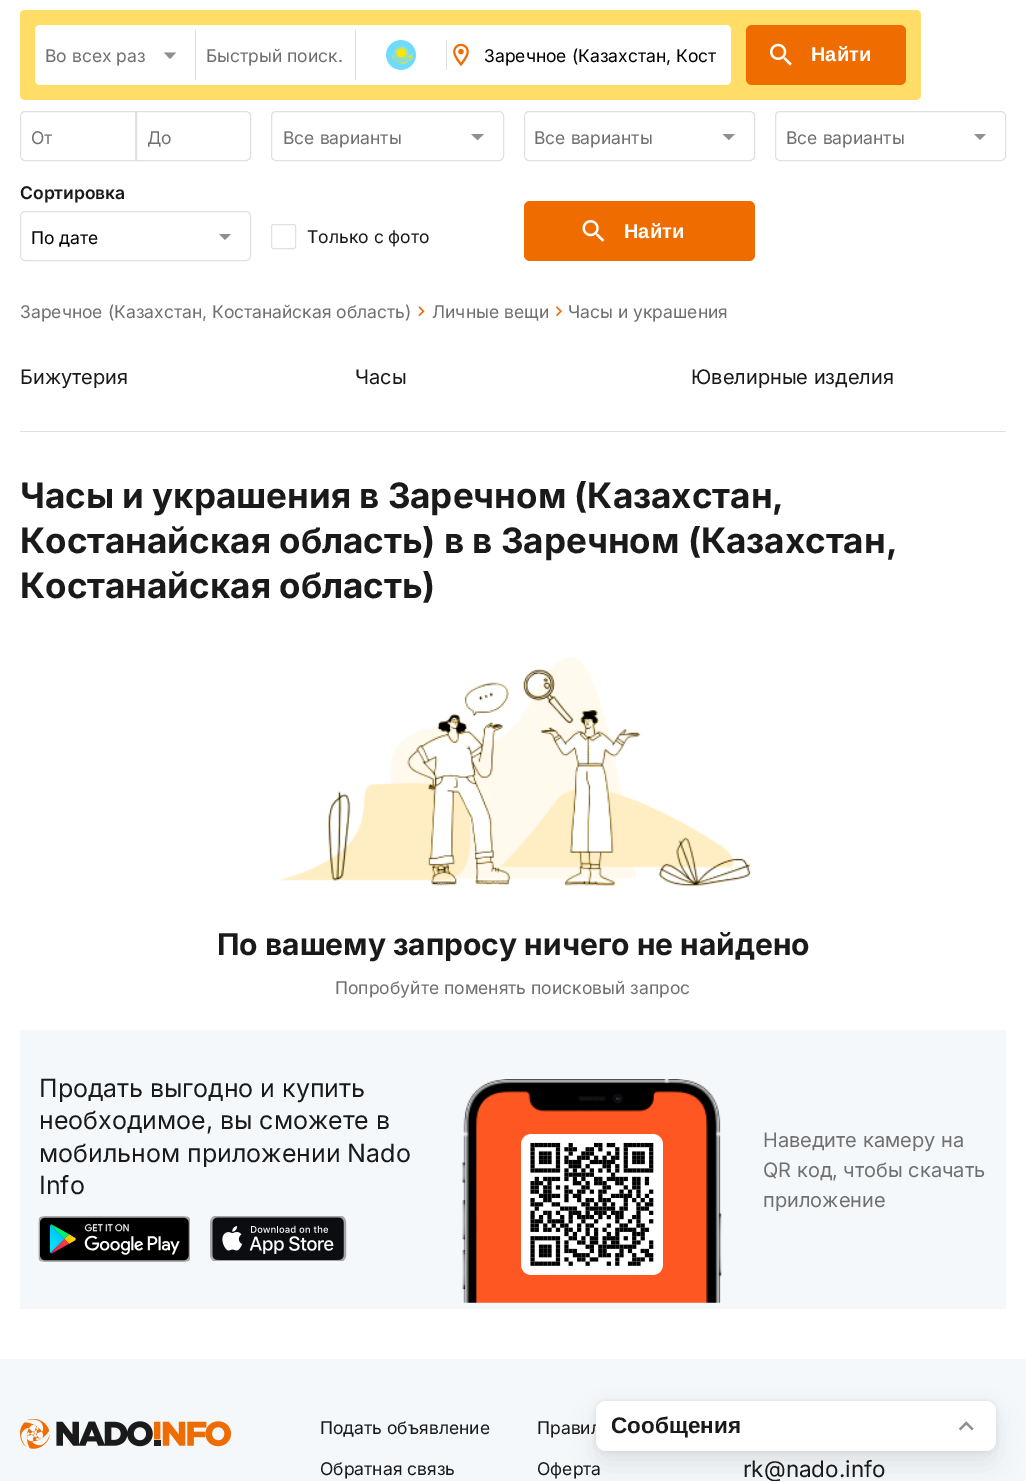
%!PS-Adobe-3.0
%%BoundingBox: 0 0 1026 1481
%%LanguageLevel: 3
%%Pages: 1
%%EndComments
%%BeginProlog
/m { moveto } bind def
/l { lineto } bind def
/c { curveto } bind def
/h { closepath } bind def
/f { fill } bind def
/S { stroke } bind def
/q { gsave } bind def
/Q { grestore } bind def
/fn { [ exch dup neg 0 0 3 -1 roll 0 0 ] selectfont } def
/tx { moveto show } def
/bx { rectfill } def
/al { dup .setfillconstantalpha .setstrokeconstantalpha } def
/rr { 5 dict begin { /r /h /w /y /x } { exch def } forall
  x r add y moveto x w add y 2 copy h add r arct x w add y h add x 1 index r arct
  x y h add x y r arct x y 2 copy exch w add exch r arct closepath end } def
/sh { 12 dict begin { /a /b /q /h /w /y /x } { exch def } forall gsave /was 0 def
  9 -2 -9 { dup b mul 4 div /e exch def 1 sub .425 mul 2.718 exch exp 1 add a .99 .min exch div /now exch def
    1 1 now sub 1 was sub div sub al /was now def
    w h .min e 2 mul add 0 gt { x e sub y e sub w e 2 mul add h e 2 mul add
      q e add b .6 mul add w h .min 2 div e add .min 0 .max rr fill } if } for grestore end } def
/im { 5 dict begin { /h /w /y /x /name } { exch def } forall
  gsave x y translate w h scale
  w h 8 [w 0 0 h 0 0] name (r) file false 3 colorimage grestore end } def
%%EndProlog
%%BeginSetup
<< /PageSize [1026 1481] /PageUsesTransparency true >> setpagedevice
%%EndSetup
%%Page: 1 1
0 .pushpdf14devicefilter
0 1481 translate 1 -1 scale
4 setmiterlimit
1 setgray
0 0 1026 1481 bx
1 0.867 0.4 setrgbcolor
20 10 901 90 5 rr f
1 setgray
35 25 696 60 5 rr f
0.878 setgray
195 30 1 50 bx
/Inter-Regular 17.5 fn
0.439 setgray
(Во всех раз) 45 62 tx
0.561 setgray
164 52.5 m 170 59 l 176 52.5 l h f
0.878 setgray
355 30 1 50 bx
0.439 setgray
(Быстрый поиск.) 206 62 tx
0.878 setgray
446 40 1 30 bx
(image0.raw) 386 40 30 30 im
(image1.raw) 453 43 16 24 im
0 setgray
(Заречное \(Казахстан, Кост) 484 62 tx
0.937 0.424 0 setrgbcolor
746 25 160 60 6 rr f
(image2.raw) 770 43 22 23 im
/LiberationSans-Bold 20 fn
1 setgray
(Найти) 811 61 tx
0.878 setgray
25 111.5 m 135.5 111.5 l 135.5 160.5 l 25 160.5 l 22.5 160.5 20.5 158.5 20.5 156 c 20.5 116 l 20.5 113.5 22.5 111.5 25 111.5 c h S
/Inter-Regular 17.5 fn
0.439 setgray
(От) 31 144 tx
0.878 setgray
136.5 111.5 m 246 111.5 l 248.5 111.5 250.5 113.5 250.5 116 c 250.5 156 l 250.5 158.5 248.5 160.5 246 160.5 c 136.5 160.5 l h S
q
148 126 92 22 rectclip
0.439 setgray
(До) 147 144 tx
Q
271.5 111.5 232 49 4.5 rr S
0.439 setgray
(Все варианты) 283 144 tx
0.561 setgray
471 134 m 477.5 140 l 484 134 l h f
0.878 setgray
524.5 111.5 230 49 4.5 rr S
0.439 setgray
(Все варианты) 534 144 tx
0.561 setgray
722.5 134 m 729 140 l 735 134 l h f
0.878 setgray
775.5 111.5 230 49 4.5 rr S
0.439 setgray
(Все варианты) 786 144 tx
0.561 setgray
974 134 m 980 140 l 986 134 l h f
/Inter-SemiBold 17.5 fn
0.102 setgray
(Сортировка) 20 199 tx
0.878 setgray
20.5 211.5 230 49 4.5 rr S
/Inter-Regular 17.5 fn
0 setgray
(По дате) 31 244 tx
0.561 setgray
219 234 m 225 240 l 231 234 l h f
0.878 setgray
271.5 224.5 24 24 2 rr S
0.102 setgray
(Только с фото) 307 243 tx
0.937 0.424 0 setrgbcolor
524 201 231 60 6 rr f
(image3.raw) 582 220 23 22 im
/LiberationSans-Bold 20 fn
1 setgray
(Найти) 624 238 tx
/Inter-Regular 17.5 fn
0.439 setgray
(Заречное \(Казахстан, Костанайская область\)) 20 318 tx
(image4.raw) 418 306 7 11 im
(Личные вещи) 432 318 tx
(image5.raw) 556 306 6 11 im
(Часы и украшения) 568 318 tx
0.878 setgray
20 431 986 1 bx
/Inter-Regular 20 fn
0.102 setgray
(Бижутерия) 20 384 tx
(Часы) 355 384 tx
(Ювелирные изделия) 691 384 tx
/Inter-Bold 35 fn
(Часы и украшения в Заречном \(Казахстан,) 20 508 tx
(Костанайская область\) в в Заречном \(Казахстан,) 20 553 tx
(Костанайская область\)) 20 598 tx
(image6.raw) 280 657 471 230 im
/Inter-Bold 30 fn
(По вашему запросу ничего не найдено) 217 955 tx
/Inter-Regular 17.5 fn
0.439 setgray
(Попробуйте поменять поисковый запрос) 335 994 tx
0.961 0.973 0.98 setrgbcolor
20 1030 986 279 bx
/Inter-Regular 25 fn
0.102 setgray
(Продать выгодно и купить) 39 1097 tx
(необходимое, вы сможете в) 39 1129 tx
(мобильном приложении Nado) 39 1162 tx
(Info) 39 1194 tx
(image7.raw) 38 1216 152 46 im
(image8.raw) 210 1216 137 45 im
(image9.raw) 462 1079 260 224 im
(image10.raw) 521 1134 142 141 im
/Inter-Regular 20 fn
0.439 setgray
(Наведите камеру на) 763 1147 tx
(QR код, чтобы скачать) 763 1177 tx
(приложение) 763 1207 tx
0.961 0.973 0.98 setrgbcolor
0 1359 1026 122 bx
0 setgray
596 1414 400 50 10 12.5 0.08 sh
596 1401 400 50 10 2.5 0.08 sh
/Inter-Regular 17.5 fn
0.102 setgray
(Правил) 537 1434 tx
1 setgray
596 1401 400 50 10 rr f
/LiberationSans-Bold 22.5 fn
0.102 setgray
(Сообщения) 611 1433 tx
(image11.raw) 958 1421 16 10 im
(image12.raw) 20 1419 211 30 im
/Inter-Regular 17.5 fn
(Подать объявление) 320 1434 tx
(Обратная связь) 320 1475 tx
(Оферта) 537 1475 tx
/Inter-Regular 22.5 fn
(rk@nado.info) 743 1477 tx
.poppdf14devicefilter showpage
%%EOF
